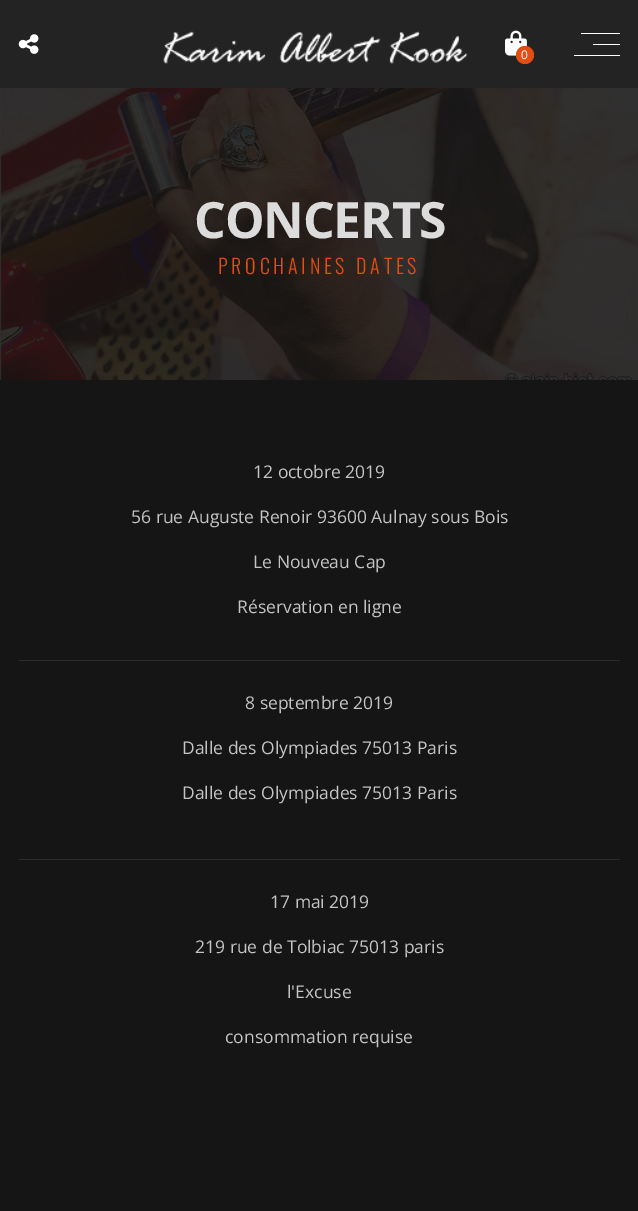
%!PS-Adobe-3.0
%%BoundingBox: 0 0 638 1211
%%LanguageLevel: 3
%%Pages: 1
%%EndComments
%%BeginProlog
/m { moveto } bind def
/f { fill } bind def
/fn { [ exch dup neg 0 0 3 -1 roll 0 0 ] selectfont } def
/tx { moveto show } def
/bx { rectfill } def
/ci { newpath 0 360 arc closepath } def
/im { 5 dict begin { /h /w /y /x /name } { exch def } forall
  gsave x y translate w h scale
  w h 8 [w 0 0 h 0 0] name (r) file false 3 colorimage grestore end } def
%%EndProlog
%%BeginSetup
<< /PageSize [638 1211] >> setpagedevice
%%EndSetup
%%Page: 1 1
0 1211 translate 1 -1 scale
4 setmiterlimit
0.082 setgray
0 0 638 1211 bx
0.137 setgray
0 0 638 88 bx
(image0.raw) 18 34 21 20 im
(image1.raw) 163 31 305 33 im
(image2.raw) 505 30 22 26 im
0.894 0.302 0.075 setrgbcolor
525 55 9 ci f
/OpenSans-Regular 12 fn
1 setgray
(0) 521 59 tx
581 33 39 1 bx
593 44 27 1 bx
574 55 46 1 bx
(image3.raw) 0 88 638 292 im
/OpenSans-Bold 50 fn
0.863 setgray
194 238 m -1.25 0 (CONCERTS) ashow
/Oswald-Light 20 fn
0.894 0.302 0.075 setrgbcolor
218 274 m 3.75 0 (PROCHAINES DATES) ashow
0.169 setgray
19 660 601 1 bx
/OpenSans-Regular 17.5 fn
0.769 setgray
(12 octobre 2019) 253 478 tx
(56 rue Auguste Renoir 93600 Aulnay sous Bois) 131 523 tx
(Le Nouveau Cap) 253 568 tx
(Réservation en ligne) 237 613 tx
0.169 setgray
19 859 601 1 bx
0.769 setgray
(8 septembre 2019) 245 709 tx
(Dalle des Olympiades 75013 Paris) 182 754 tx
(Dalle des Olympiades 75013 Paris) 182 799 tx
(17 mai 2019) 270 908 tx
(219 rue de Tolbiac 75013 paris) 195 953 tx
(l'Excuse) 287 998 tx
(consommation requise) 225 1043 tx
showpage
%%EOF
